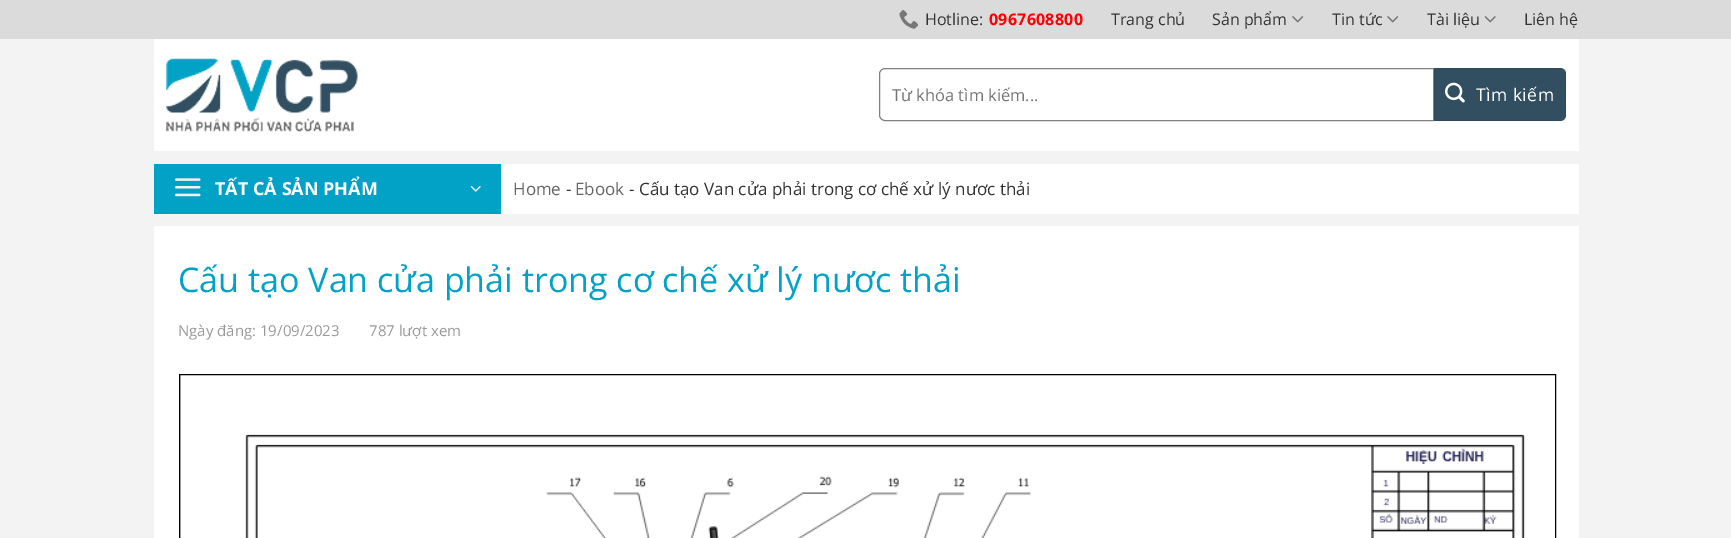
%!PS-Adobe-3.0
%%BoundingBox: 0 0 1731 538
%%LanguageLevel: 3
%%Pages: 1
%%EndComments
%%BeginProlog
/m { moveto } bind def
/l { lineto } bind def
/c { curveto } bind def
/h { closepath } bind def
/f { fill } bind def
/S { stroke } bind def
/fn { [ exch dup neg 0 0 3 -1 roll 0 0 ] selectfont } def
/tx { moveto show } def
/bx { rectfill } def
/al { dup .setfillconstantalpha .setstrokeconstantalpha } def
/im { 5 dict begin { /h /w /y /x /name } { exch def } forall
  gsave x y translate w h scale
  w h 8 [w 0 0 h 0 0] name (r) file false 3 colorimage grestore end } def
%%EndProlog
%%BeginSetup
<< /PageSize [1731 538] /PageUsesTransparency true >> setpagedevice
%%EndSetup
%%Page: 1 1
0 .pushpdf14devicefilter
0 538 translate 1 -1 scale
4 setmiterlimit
0.953 setgray
0 0 1731 538 bx
0.859 setgray
0 0 1731 39 bx
(image0.raw) 899 10 19 19 im
/OpenSans-Regular 16 fn
0.2 setgray
(Hotline:) 925 25 tx
/OpenSans-Bold 16 fn
1 0 0 setrgbcolor
989 25 m 0.25 0 (0967608800) ashow
/OpenSans-Regular 16 fn
0.2 setgray
(Trang chủ) 1111 25 tx
(Sản phẩm) 1212 25 tx
(image1.raw) 1292 16 12 7 im
(Tin tức) 1332 25 tx
(image1.raw) 1387 16 12 7 im
(Tài liệu) 1427 25 tx
(image2.raw) 1484 16 12 7 im
(Liên hệ) 1524 25 tx
1 setgray
154 39 1425 112 bx
(image3.raw) 166 58 192 74 im
0.502 setgray
885 68.5 m 1433.5 68.5 l 1433.5 120.5 l 885 120.5 l 882 120.5 879.5 118 879.5 115 c 879.5 74 l 879.5 71 882 68.5 885 68.5 c h S
/OpenSans-Regular 16.5 fn
0.459 setgray
(Từ khóa tìm kiếm...) 892 101 tx
0.192 0.31 0.376 setrgbcolor
1434 68 m 1560 68 l 1563.5 68 1566 70.5 1566 74 c 1566 115 l 1566 118.5 1563.5 121 1560 121 c 1434 121 l h f
0.05 al
0 setgray
1434.5 68.5 131 52 rectstroke
1 al
(image4.raw) 1445 82 20 21 im
/OpenSans-Regular 17.5 fn
1 setgray
1476 101 m 0.5 0 (Tìm kiếm) ashow
501 164 1078 50 bx
0.008 0.635 0.776 setrgbcolor
154 164 347 50 bx
(image5.raw) 175 178 26 19 im
/OpenSans-Bold 18 fn
1 setgray
(TẤT CẢ SẢN PHẨM) 215 195 tx
(image6.raw) 470 186 11 6 im
/OpenSans-Regular 17 fn
0.4 setgray
(Home) 513 195 tx
0.2 setgray
(-) 566 195 tx
0.4 setgray
(Ebook) 575 195 tx
0.2 setgray
(- Cấu tạo Van cửa phải trong cơ chế xử lý nươc thải) 629 195 tx
1 setgray
154 226 1425 312 bx
/OpenSans-Regular 34 fn
0.008 0.635 0.776 setrgbcolor
(Cấu tạo Van cửa phải trong cơ chế xử lý nươc thải) 178 292 tx
/OpenSans-Regular 15 fn
0.6 setgray
(Ngày đăng: 19/09/2023) 178 336 tx
(787 lượt xem) 369 336 tx
0.827 setgray
180 375 1 163 bx
0 setgray
179.5 374.5 1376 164 rectstroke
(image7.raw) 245 434 1281 104 im
.poppdf14devicefilter showpage
%%EOF
